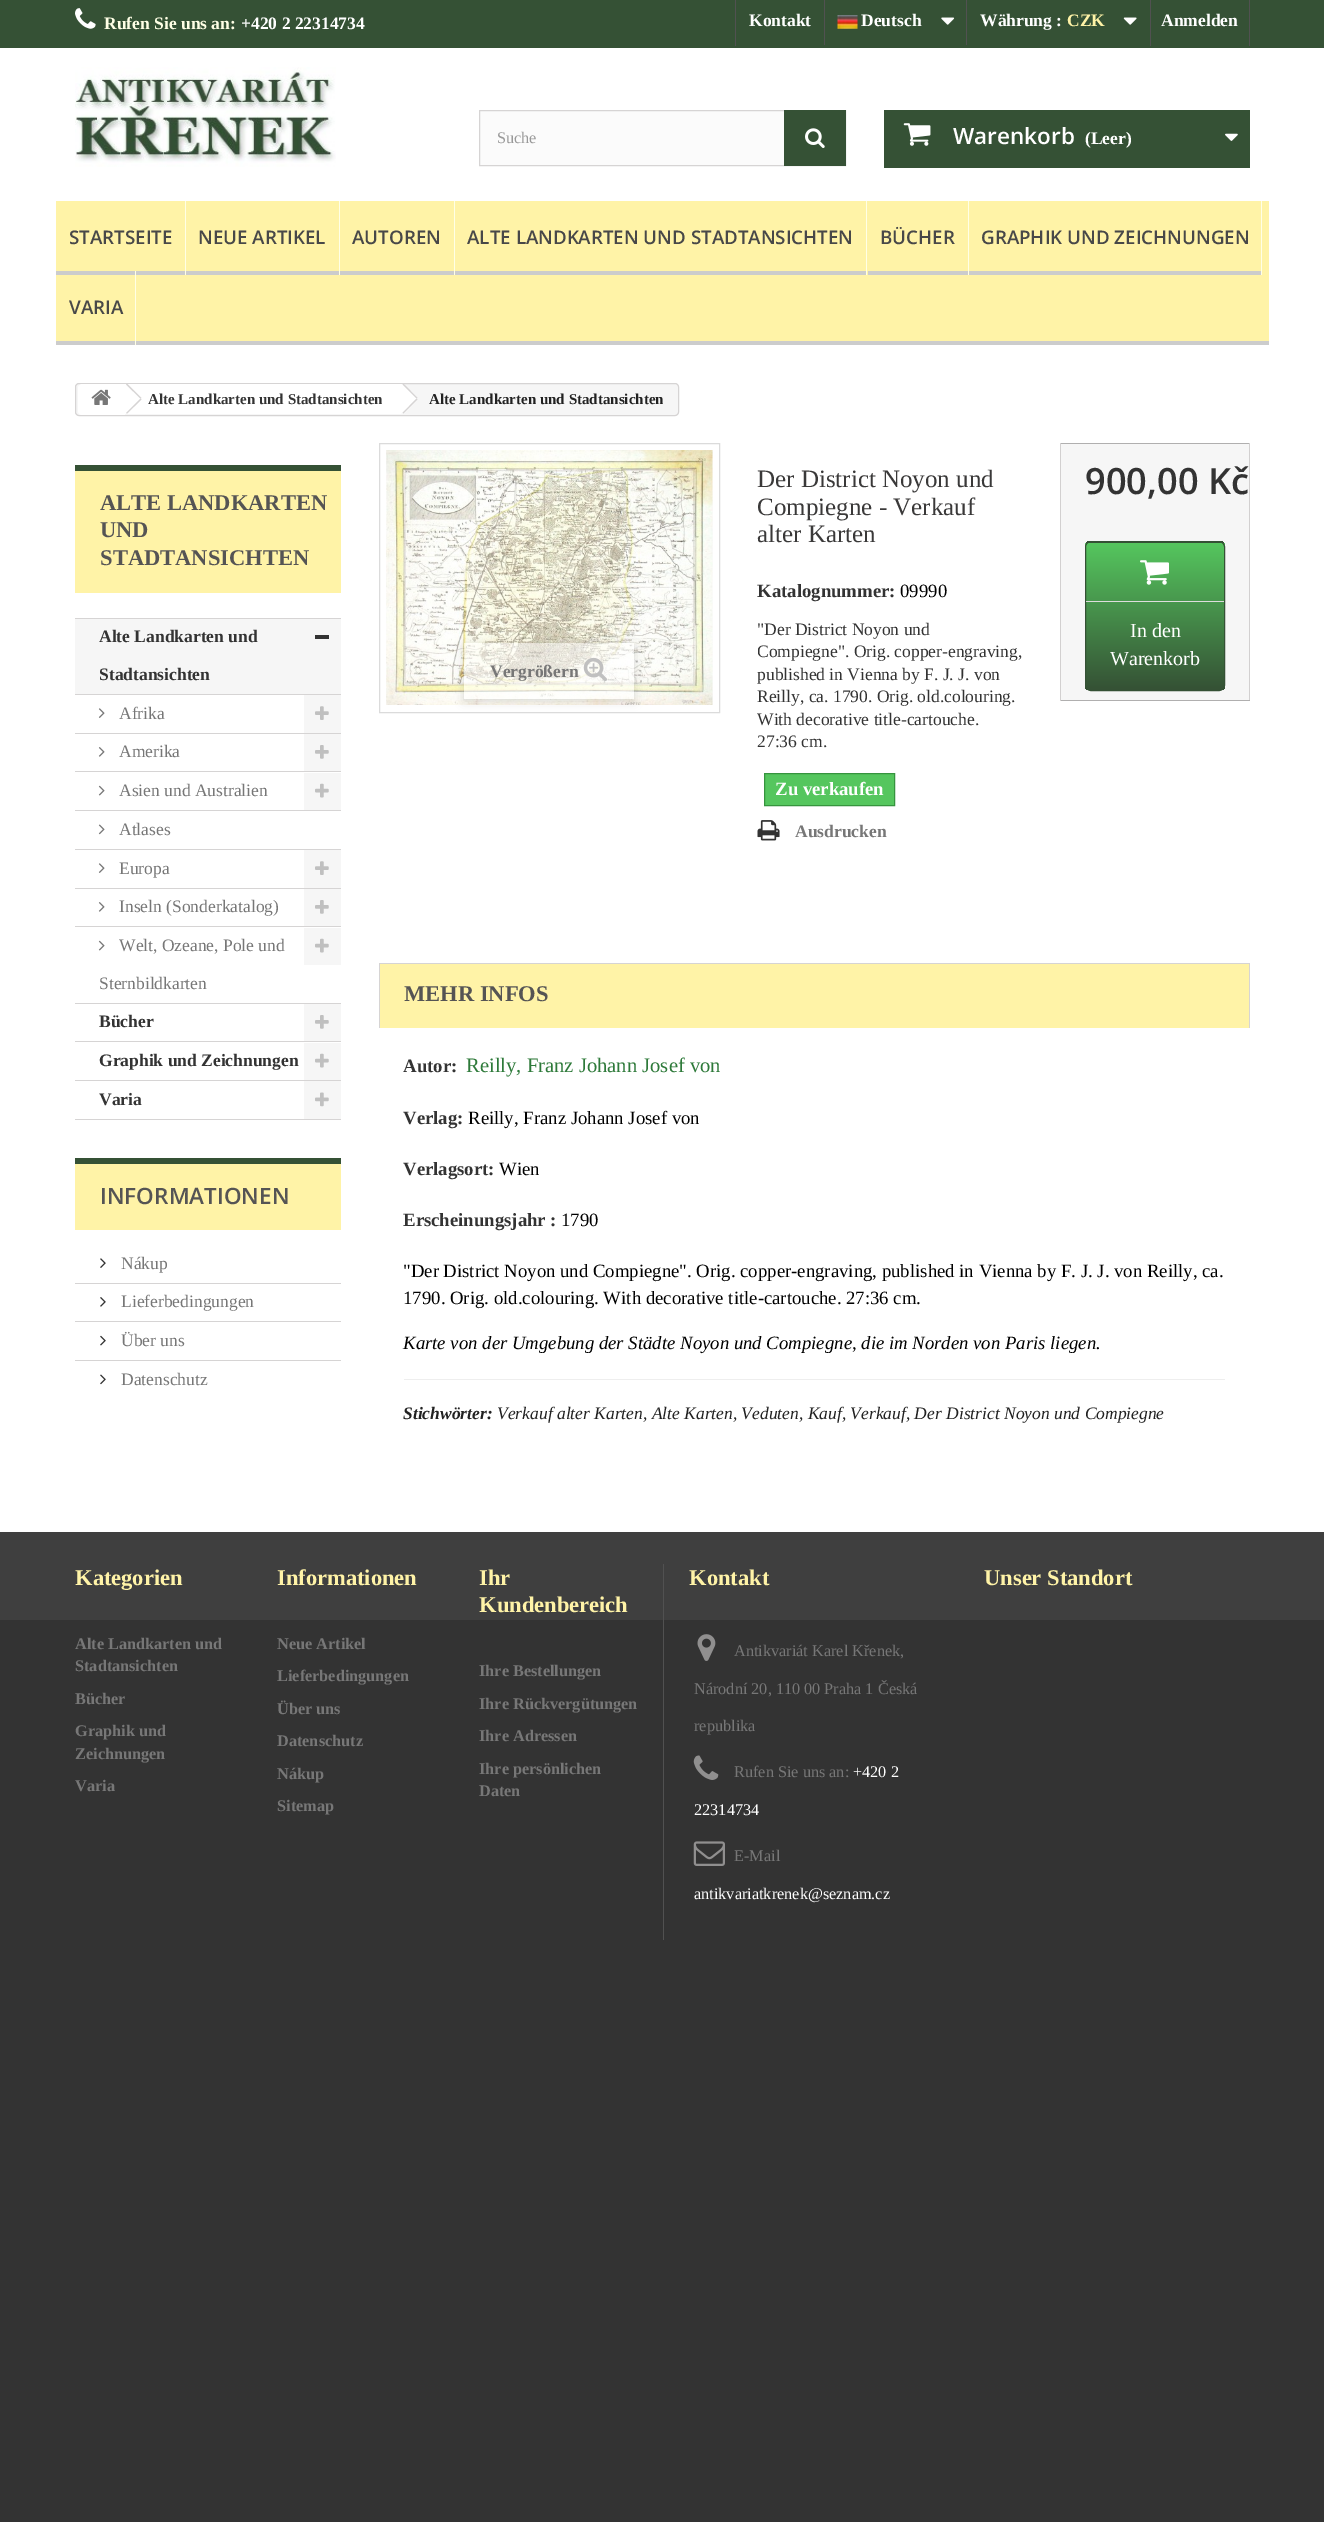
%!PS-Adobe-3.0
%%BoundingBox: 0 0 1324 2522
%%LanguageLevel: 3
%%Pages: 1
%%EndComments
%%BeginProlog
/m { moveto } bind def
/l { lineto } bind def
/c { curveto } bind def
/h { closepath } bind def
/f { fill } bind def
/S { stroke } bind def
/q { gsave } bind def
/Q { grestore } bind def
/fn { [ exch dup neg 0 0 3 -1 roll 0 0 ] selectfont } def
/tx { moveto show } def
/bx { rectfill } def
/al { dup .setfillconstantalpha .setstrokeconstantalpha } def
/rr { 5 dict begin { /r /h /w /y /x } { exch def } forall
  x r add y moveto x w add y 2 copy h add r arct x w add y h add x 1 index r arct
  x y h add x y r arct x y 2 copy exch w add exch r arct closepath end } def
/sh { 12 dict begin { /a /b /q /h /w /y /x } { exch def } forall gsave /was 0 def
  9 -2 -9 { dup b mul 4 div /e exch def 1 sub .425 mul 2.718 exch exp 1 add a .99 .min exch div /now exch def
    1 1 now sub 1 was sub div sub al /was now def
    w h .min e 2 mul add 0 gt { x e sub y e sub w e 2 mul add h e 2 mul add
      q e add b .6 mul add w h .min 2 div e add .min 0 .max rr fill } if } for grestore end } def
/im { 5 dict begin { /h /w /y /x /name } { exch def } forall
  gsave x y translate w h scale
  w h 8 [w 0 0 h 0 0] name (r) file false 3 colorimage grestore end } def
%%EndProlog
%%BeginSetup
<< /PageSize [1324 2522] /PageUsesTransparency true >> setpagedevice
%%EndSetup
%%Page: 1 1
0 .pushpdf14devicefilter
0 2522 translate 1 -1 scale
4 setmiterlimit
0.2 setgray
0 0 1324 2522 bx
1 setgray
0 48 1324 1484 bx
0.208 0.318 0.208 setrgbcolor
0 0 1324 48 bx
(image0.raw) 75 8 21 21 im
/LiberationSerif-Bold 17.5 fn
1 1 0.902 setrgbcolor
(Rufen Sie uns an:) 104 29 tx
1 setgray
(+420 2 22314734) 241 29 tx
0.318 setgray
735 0 1 46 bx
1 setgray
(Kontakt) 749 26 tx
0.318 setgray
824 0 1 45 bx
(image1.raw) 837 15 21 14 im
1 setgray
(Deutsch) 861 26 tx
(image2.raw) 941 17 14 8 im
0.318 setgray
966 0 1 45 bx
1 setgray
(Währung :) 980 26 tx
1 0.953 0.655 setrgbcolor
(CZK) 1067 26 tx
(image3.raw) 1123 17 14 8 im
0.318 setgray
1249 0 1 46 bx
1150 0 1 46 bx
1 setgray
(Anmelden) 1161 26 tx
(image4.raw) 75 67 261 100 im
0.984 setgray
480 111 304 54 bx
0.839 0.831 0.831 setrgbcolor
479.5 110.5 366 55 rectstroke
/LiberationSerif-Regular 16.25 fn
0.6 setgray
(Suche) 497 143 tx
0.208 0.318 0.208 setrgbcolor
784 110 62 56 bx
(image5.raw) 805 128 20 20 im
884 110 366 58 bx
(image6.raw) 903 123 28 23 im
/OpenSans-SemiBold 22.5 fn
1 setgray
(Warenkorb) 953 144 tx
/LiberationSerif-Bold 17.5 fn
(\(Leer\)) 1085 144 tx
(image7.raw) 1225 133 13 8 im
1 0.953 0.655 setrgbcolor
56 201 1213 140 bx
0.8 setgray
56 341 1213 4 bx
1 1 0.902 setrgbcolor
185 201 1 74 bx
0.8 setgray
56 271 129 4 bx
/OpenSans-SemiBold 18.75 fn
0.282 setgray
(STARTSEITE) 69 244 tx
1 1 0.902 setrgbcolor
339 201 1 74 bx
0.8 setgray
186 271 153 4 bx
0.282 setgray
(NEUE ARTIKEL) 198 244 tx
1 1 0.902 setrgbcolor
454 201 1 74 bx
0.8 setgray
340 271 114 4 bx
0.282 setgray
(AUTOREN) 352 244 tx
1 1 0.902 setrgbcolor
866 201 1 74 bx
0.8 setgray
455 271 411 4 bx
0.282 setgray
(ALTE LANDKARTEN UND STADTANSICHTEN) 467 244 tx
1 1 0.902 setrgbcolor
968 201 1 74 bx
0.8 setgray
868 271 100 4 bx
0.282 setgray
(BÜCHER) 880 244 tx
1 1 0.902 setrgbcolor
1261 201 1 74 bx
0.8 setgray
969 271 292 4 bx
0.282 setgray
(GRAPHIK UND ZEICHNUNGEN) 981 244 tx
1 1 0.902 setrgbcolor
135 271 1 74 bx
0.282 setgray
(VARIA) 69 314 tx
0.965 setgray
75.5 383.5 603 32 3.5 rr q f Q
0.839 0.831 0.831 setrgbcolor
S
1 setgray
82 384 m 125 384 l 125 415 l 82 415 l 80 415 78 413 78 411 c 78 388 l 78 386 80 384 82 384 c h f
(image8.raw) 91 389 20 16 im
125 384 276 30 bx
0.839 0.831 0.831 setrgbcolor
127 383.5 m 141.5 398 l 140.5 398.5 l 126 384.5 l h f
140.5 398.5 m 141.5 399.5 l 127 413.5 l 126 413 l h f
/LiberationSerif-Bold 15 fn
0.2 setgray
(Alte Landkarten und Stadtansichten) 148 404 tx
1 setgray
404.5 384.5 m 404 384 l 401.5 384 l 401 384.5 l 388.5 397 l 387.5 398 387.5 399.5 388.5 400.5 c 401 413 l 402 414 403.5 414 404.5 413 c 416.5 400.5 l 417.5 399.5 417.5 398 416.5 397 c h f
0.839 0.831 0.831 setrgbcolor
403.5 383.5 m 417.5 398 l 416.5 398.5 l 402.5 384.5 l h f
416.5 398.5 m 417.5 399.5 l 403.5 413.5 l 402.5 413 l h f
0.133 setgray
(Alte Landkarten und Stadtansichten) 429 404 tx
1 0.953 0.655 setrgbcolor
75 471 266 122 bx
0.208 0.318 0.208 setrgbcolor
75 465 266 6 bx
/LiberationSerif-Bold 22.5 fn
0.333 0.329 0.329 setrgbcolor
(ALTE LANDKARTEN) 100 510 tx
(UND) 100 537 tx
(STADTANSICHTEN) 100 565 tx
0.839 0.831 0.831 setrgbcolor
75 618 266 1 bx
0.965 setgray
75 619 266 75 bx
0.839 0.831 0.831 setrgbcolor
75 694 266 1 bx
/LiberationSerif-Bold 17.5 fn
0.2 setgray
(Alte Landkarten und) 99 642 tx
(Stadtansichten) 99 680 tx
315 635 14 4 bx
0.839 0.831 0.831 setrgbcolor
75 733 266 1 bx
(image9.raw) 98 708 7 10 im
/LiberationSerif-Regular 17.5 fn
0.467 setgray
(Afrika) 119 719 tx
0.965 setgray
304 695 37 38 bx
(image10.raw) 315 706 14 14 im
0.839 0.831 0.831 setrgbcolor
75 771 266 1 bx
(image11.raw) 98 747 7 10 im
0.467 setgray
(Amerika) 119 757 tx
0.965 setgray
304 734 37 37 bx
(image12.raw) 315 745 14 14 im
0.839 0.831 0.831 setrgbcolor
75 810 266 1 bx
(image13.raw) 98 785 7 11 im
0.467 setgray
(Asien und Australien) 119 796 tx
0.965 setgray
304 773 37 37 bx
(image14.raw) 315 783 14 15 im
0.839 0.831 0.831 setrgbcolor
75 849 266 1 bx
(image15.raw) 98 824 7 11 im
0.467 setgray
(Atlases) 119 835 tx
0.839 0.831 0.831 setrgbcolor
75 888 266 1 bx
(image9.raw) 98 863 7 10 im
0.467 setgray
(Europa) 119 874 tx
0.965 setgray
304 850 37 38 bx
(image10.raw) 315 861 14 14 im
0.839 0.831 0.831 setrgbcolor
75 926 266 1 bx
(image11.raw) 98 902 7 10 im
0.467 setgray
(Inseln \(Sonderkatalog\)) 119 912 tx
0.965 setgray
304 889 37 37 bx
(image12.raw) 315 900 14 14 im
0.839 0.831 0.831 setrgbcolor
75 1003 266 1 bx
(image13.raw) 98 940 7 11 im
0.467 setgray
(Welt, Ozeane, Pole und) 119 951 tx
(Sternbildkarten) 99 989 tx
0.965 setgray
304 928 37 37 bx
(image14.raw) 315 938 14 15 im
0.839 0.831 0.831 setrgbcolor
75 1041 266 1 bx
/LiberationSerif-Bold 17.5 fn
0.2 setgray
(Bücher) 99 1027 tx
0.965 setgray
304 1004 37 37 bx
(image12.raw) 315 1015 14 14 im
0.839 0.831 0.831 setrgbcolor
75 1080 266 1 bx
0.2 setgray
(Graphik und Zeichnungen) 99 1066 tx
0.965 setgray
304 1043 37 37 bx
(image14.raw) 315 1053 14 15 im
0.839 0.831 0.831 setrgbcolor
75 1119 266 1 bx
0.2 setgray
(Varia) 99 1105 tx
0.965 setgray
304 1081 37 38 bx
(image16.raw) 315 1092 14 15 im
1 0.953 0.655 setrgbcolor
75 1164 266 66 bx
0.208 0.318 0.208 setrgbcolor
75 1158 266 6 bx
/OpenSans-SemiBold 22.5 fn
0.333 0.329 0.329 setrgbcolor
(INFORMATIONEN) 100 1204 tx
(image17.raw) 100 1258 6 10 im
/LiberationSerif-Regular 17.5 fn
0.467 setgray
(Nákup) 121 1269 tx
0.839 0.831 0.831 setrgbcolor
75 1283 266 1 bx
(image18.raw) 100 1297 6 10 im
0.467 setgray
(Lieferbedingungen) 121 1307 tx
0.839 0.831 0.831 setrgbcolor
75 1321 266 1 bx
(image19.raw) 100 1335 6 11 im
0.467 setgray
(Über uns) 121 1346 tx
0.839 0.831 0.831 setrgbcolor
75 1360 266 1 bx
(image20.raw) 100 1374 6 11 im
0.467 setgray
(Datenschutz) 121 1385 tx
0.859 setgray
379.5 443.5 340 269 rectstroke
0.984 setgray
386 450 327 255 bx
(image21.raw) 386 450 327 255 im
q
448 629 m 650 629 l 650 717 l 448 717 l h 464 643 m 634 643 l 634 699 l 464 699 l h eoclip newpath
0 setgray
464 645 170 56 0 5 0.16 sh
Q
0.5 al
1 setgray
464 643 170 56 bx
/LiberationSerif-Bold 17.5 fn
1 al
0.467 setgray
(Vergrößern) 490 677 tx
(image22.raw) 583 657 24 24 im
/LiberationSerif-Regular 25 fn
0.227 0.224 0.224 setrgbcolor
(Der District Noyon und) 757 487 tx
(Compiegne - Verkauf) 757 515 tx
(alter Karten) 757 542 tx
/LiberationSerif-Bold 18.75 fn
0.2 setgray
(Katalognummer:) 757 597 tx
/LiberationSerif-Regular 18.75 fn
0 setgray
(09990) 900 597 tx
/LiberationSerif-Regular 17.5 fn
0.2 setgray
("Der District Noyon und) 757 635 tx
q
758 619 265 154 rectclip
(Compiegne". Orig. copper-engraving,) 757 657 tx
Q
(published in Vienna by F. J. J. von) 757 680 tx
(Reilly, ca. 1790. Orig. old.colouring.) 757 702 tx
(With decorative title-cartouche.) 757 725 tx
(27:36 cm.) 757 747 tx
0.333 0.776 0.369 setrgbcolor
764.5 773.5 m 894.5 773.5 l 894.5 805.5 l 764.5 805.5 l h q f Q
0.212 0.58 0.243 setrgbcolor
S
/LiberationSerif-Bold 18.75 fn
1 setgray
(Zu verkaufen) 775 795 tx
(image23.raw) 757 820 23 21 im
/LiberationSerif-Bold 17.5 fn
0.467 setgray
(Ausdrucken) 795 837 tx
0.965 setgray
1061 444 188 256 bx
0.69 0.686 0.686 setrgbcolor
1060 443 190 1 bx
0.824 0.816 0.816 setrgbcolor
1249 443 1 258 bx
0.69 0.686 0.686 setrgbcolor
1060 700 190 1 bx
0.824 0.816 0.816 setrgbcolor
1060 443 1 258 bx
/OpenSans-SemiBold 36.25 fn
0.2 setgray
(900,00 Kč) 1085 494 tx
q
1085 541 140 150 6 rr clip newpath
q 1085 541 m 1225 541 l 1225 543 l 1085 543 l h clip newpath
<< /ShadingType 2 /ColorSpace /DeviceRGB /Coords [1155 395 1155 543] /Extend [true true] /Function << /FunctionType 2 /Domain [0 1] /C0 [0.333 0.776 0.369] /C1 [0.208 0.318 0.208] /N 1 >> >> shfill Q
q 1085 543 m 1225 543 l 1225 690 l 1085 690 l h clip newpath
<< /ShadingType 2 /ColorSpace /DeviceRGB /Coords [1155 543 1155 690] /Extend [true true] /Function << /FunctionType 2 /Domain [0 1] /C0 [0.333 0.776 0.369] /C1 [0.208 0.318 0.208] /N 1 >> >> shfill Q
Q
0.208 0.318 0.208 setrgbcolor
1085.5 541.5 139 149 5.5 rr S
(image24.raw) 1140 560 29 25 im
0.867 setgray
1086 601 138 1 bx
/LiberationSerif-Regular 20 fn
1 setgray
(In den) 1130 637 tx
(Warenkorb) 1110 665 tx
1 0.953 0.655 setrgbcolor
380 964 869 64 bx
0.839 0.831 0.831 setrgbcolor
379 963 871 1 bx
1249 963 1 65 bx
379 963 1 65 bx
/LiberationSerif-Bold 22.5 fn
0.333 0.329 0.329 setrgbcolor
(MEHR INFOS) 404 1001 tx
/LiberationSerif-Bold 18.75 fn
0.2 setgray
(Autor:) 403 1072 tx
/LiberationSerif-Regular 20.6 fn
0.18 0.478 0.227 setrgbcolor
(Reilly, Franz Johann Josef von) 466 1072 tx
/LiberationSerif-Bold 18.75 fn
0.2 setgray
(Verlag:) 403 1124 tx
/LiberationSerif-Regular 18.75 fn
0 setgray
(Reilly, Franz Johann Josef von) 468 1124 tx
/LiberationSerif-Bold 18.75 fn
0.2 setgray
(Verlagsort:) 403 1175 tx
/LiberationSerif-Regular 18.75 fn
0 setgray
(Wien) 499 1175 tx
/LiberationSerif-Bold 18.75 fn
0.2 setgray
(Erscheinungsjahr :) 403 1226 tx
/LiberationSerif-Regular 18.75 fn
0 setgray
(1790) 561 1226 tx
("Der District Noyon und Compiegne". Orig. copper-engraving, published in Vienna by F. J. J. von Reilly, ca.) 403 1277 tx
(1790. Orig. old.colouring. With decorative title-cartouche. 27:36 cm.) 403 1304 tx
/LiberationSerif-Italic 18.75 fn
(Karte von der Umgebung der Städte Noyon und Compiegne, die im Norden von Paris liegen.) 403 1349 tx
0.933 setgray
404 1379 821 1 bx
/LiberationSerif-BoldItalic 17.5 fn
0.133 setgray
(Stichwörter:) 403 1419 tx
/LiberationSerif-Italic 17.5 fn
(Verkauf alter Karten, Alte Karten, Veduten, Kauf, Verkauf, Der District Noyon und Compiegne) 497 1419 tx
0.247 setgray
0 1532 1324 88 bx
/LiberationSerif-Bold 22.5 fn
1 0.953 0.655 setrgbcolor
(Kategorien) 75 1585 tx
/LiberationSerif-Bold 16.25 fn
0.467 setgray
(Alte Landkarten und) 75 1649 tx
(Stadtansichten) 75 1671 tx
(Bücher) 75 1704 tx
(Graphik und) 75 1736 tx
(Zeichnungen) 75 1759 tx
(Varia) 75 1791 tx
/LiberationSerif-Bold 22.5 fn
1 0.953 0.655 setrgbcolor
(Informationen) 277 1585 tx
/LiberationSerif-Bold 16.25 fn
0.467 setgray
(Neue Artikel) 277 1649 tx
(Lieferbedingungen) 277 1681 tx
(Über uns) 277 1714 tx
(Datenschutz) 277 1746 tx
(Nákup) 277 1779 tx
(Sitemap) 277 1811 tx
/LiberationSerif-Bold 22.5 fn
1 0.953 0.655 setrgbcolor
(Ihr) 479 1585 tx
(Kundenbereich) 479 1612 tx
/LiberationSerif-Bold 16.25 fn
0.467 setgray
(Ihre Bestellungen) 479 1676 tx
(Ihre Rückvergütungen) 479 1709 tx
(Ihre Adressen) 479 1741 tx
(Ihre persönlichen) 479 1774 tx
(Daten) 479 1796 tx
0.318 setgray
663 1564 1 376 bx
/LiberationSerif-Bold 22.5 fn
1 0.953 0.655 setrgbcolor
(Kontakt) 689 1585 tx
(image25.raw) 697 1634 19 27 im
/LiberationSerif-Regular 16.25 fn
0.467 setgray
(Antikvariát Karel Křenek,) 734 1656 tx
(Národní 20, 110 00 Praha 1 Česká) 694 1694 tx
(republika) 694 1731 tx
(image26.raw) 693 1755 26 25 im
(Rufen Sie uns an:) 734 1777 tx
1 setgray
(+420 2) 853 1777 tx
(22314734) 694 1815 tx
(image27.raw) 693 1841 32 25 im
0.467 setgray
(E-Mail) 734 1861 tx
1 setgray
(antikvariatkrenek@seznam.cz) 694 1899 tx
/LiberationSerif-Bold 22.5 fn
1 0.953 0.655 setrgbcolor
(Unser Standort) 984 1585 tx
.poppdf14devicefilter showpage
%%EOF
